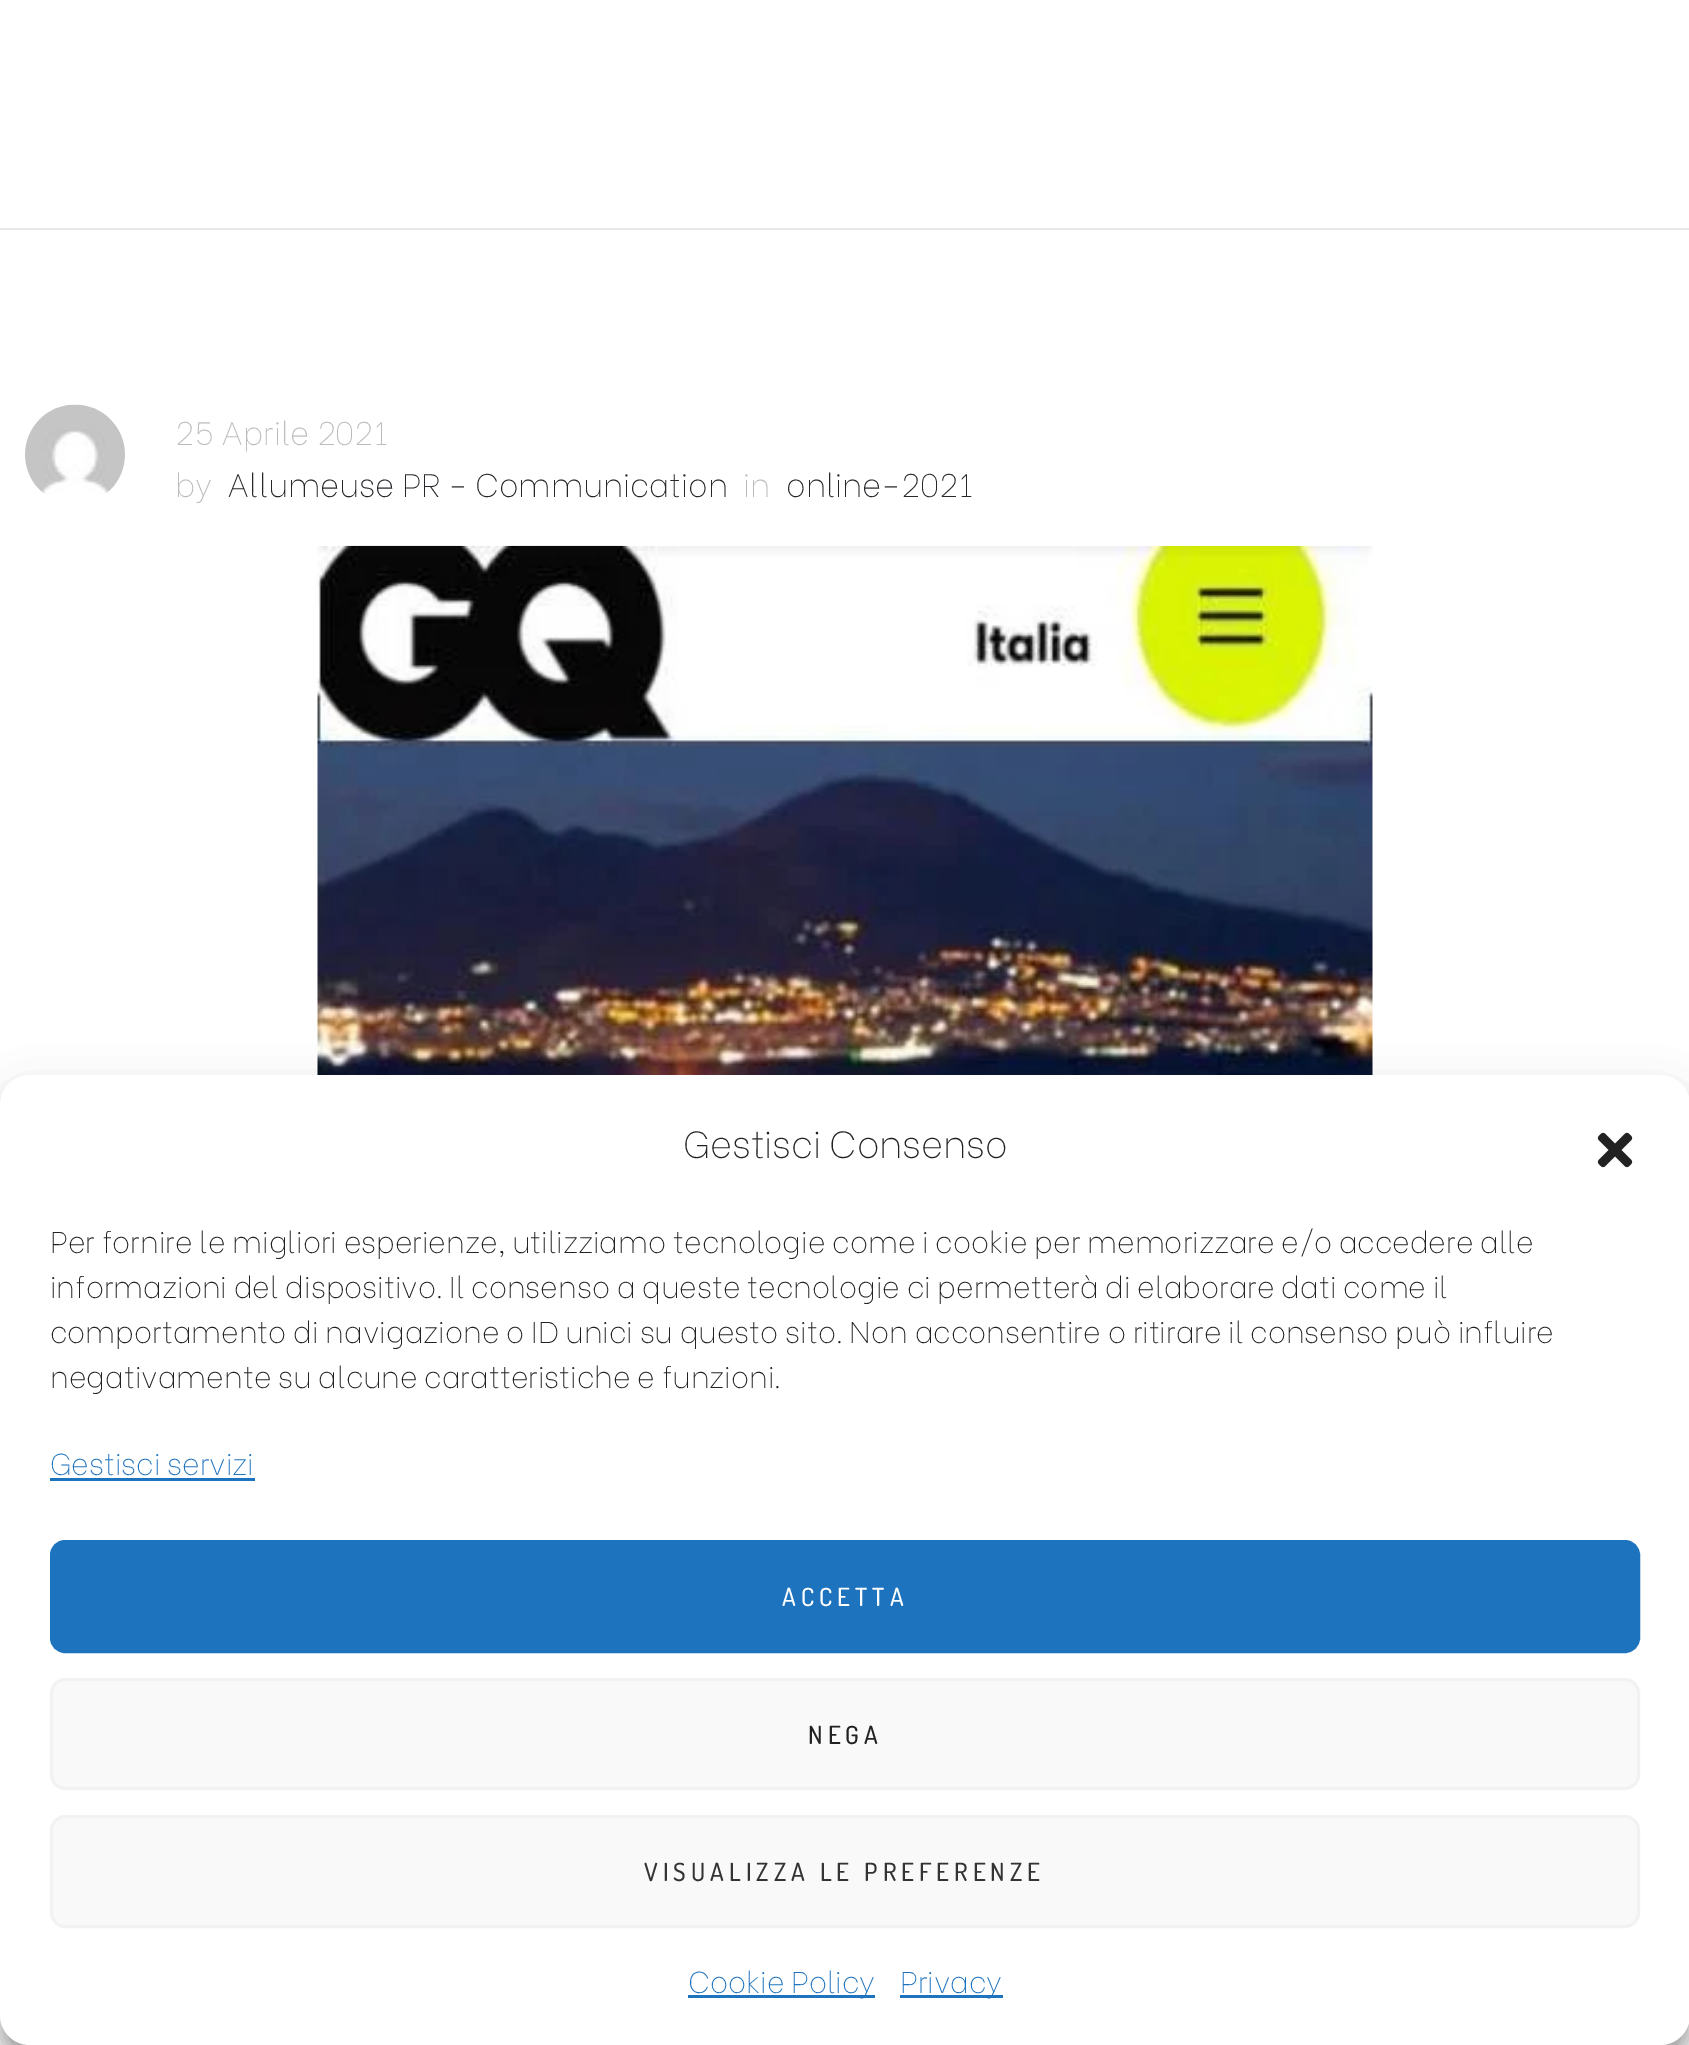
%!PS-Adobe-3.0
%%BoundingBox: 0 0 1689 2045
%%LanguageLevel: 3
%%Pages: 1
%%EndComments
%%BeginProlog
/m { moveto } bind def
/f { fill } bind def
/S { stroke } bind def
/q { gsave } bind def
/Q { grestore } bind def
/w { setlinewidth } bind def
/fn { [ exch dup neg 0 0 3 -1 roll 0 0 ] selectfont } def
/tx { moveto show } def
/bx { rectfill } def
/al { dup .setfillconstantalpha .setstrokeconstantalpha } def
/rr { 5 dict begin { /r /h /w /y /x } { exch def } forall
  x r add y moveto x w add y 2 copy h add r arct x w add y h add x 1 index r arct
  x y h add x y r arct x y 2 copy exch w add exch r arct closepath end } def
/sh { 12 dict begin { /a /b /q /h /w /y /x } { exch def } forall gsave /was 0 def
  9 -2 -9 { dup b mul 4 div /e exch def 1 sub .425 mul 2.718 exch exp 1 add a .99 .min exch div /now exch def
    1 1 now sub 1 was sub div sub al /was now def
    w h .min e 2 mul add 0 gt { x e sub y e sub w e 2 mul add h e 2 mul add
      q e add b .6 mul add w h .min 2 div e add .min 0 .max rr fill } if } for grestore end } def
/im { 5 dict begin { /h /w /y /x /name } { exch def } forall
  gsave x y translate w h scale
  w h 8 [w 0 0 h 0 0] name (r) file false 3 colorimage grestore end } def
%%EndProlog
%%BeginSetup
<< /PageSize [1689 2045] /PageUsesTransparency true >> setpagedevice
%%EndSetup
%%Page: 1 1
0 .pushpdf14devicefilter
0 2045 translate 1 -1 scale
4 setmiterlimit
1 setgray
0 0 1689 2045 bx
0.91 setgray
0 228 1689 2 bx
(image0.raw) 25 404 100 90 im
/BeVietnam-Thin 32.5 fn
0.737 setgray
(25 Aprile 2021) 175 445 tx
(by) 175 497 tx
0.157 0.149 0.169 setrgbcolor
(Allumeuse PR - Communication) 227 497 tx
0.737 setgray
(in) 743 497 tx
0.157 0.149 0.169 setrgbcolor
(online-2021) 786 497 tx
(image1.raw) 317 545 1056 530 im
0 setgray
0 1090 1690 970 30 7.5 0.23 sh
0 1100 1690 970 30 25 0.19 sh
1 setgray
0 1075 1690 970 30 rr f
/BeVietnam-Thin 37.5 fn
0.133 setgray
(Gestisci Consenso) 683 1158 tx
(image2.raw) 1597 1132 36 36 im
/BeVietnam-Thin 30 fn
(Per fornire le migliori esperienze, utilizziamo tecnologie come i cookie per memorizzare e/o accedere alle) 50 1253 tx
(informazioni del dispositivo. Il consenso a queste tecnologie ci permetterà di elaborare dati come il) 50 1298 tx
(comportamento di navigazione o ID unici su questo sito. Non acconsentire o ritirare il consenso può influire) 50 1343 tx
(negativamente su alcune caratteristiche e funzioni.) 50 1388 tx
0.118 0.451 0.745 setrgbcolor
(Gestisci servizi) 50 1475 tx
50 1478 205 3 bx
51.5 1541.5 1587 110 13.5 rr q f Q
3 w
S
/Dosis-Medium 25 fn
1 setgray
782 1606 m 5 0 (ACCETTA) ashow
0.976 setgray
51.5 1679.5 1587 109 13.5 rr q f Q
0.949 setgray
S
0.133 setgray
808 1744 m 5 0 (NEGA) ashow
0.976 setgray
51.5 1816.5 1587 110 13.5 rr q f Q
0.949 setgray
S
0.2 setgray
644 1881 m 5 0 (VISUALIZZA LE PREFERENZE) ashow
0.118 0.451 0.745 setrgbcolor
688 1995 187 3 bx
/BeVietnam-Thin 30 fn
(Cookie Policy) 688 1993 tx
900 1995 103 3 bx
(Privacy) 900 1993 tx
.poppdf14devicefilter showpage
%%EOF
